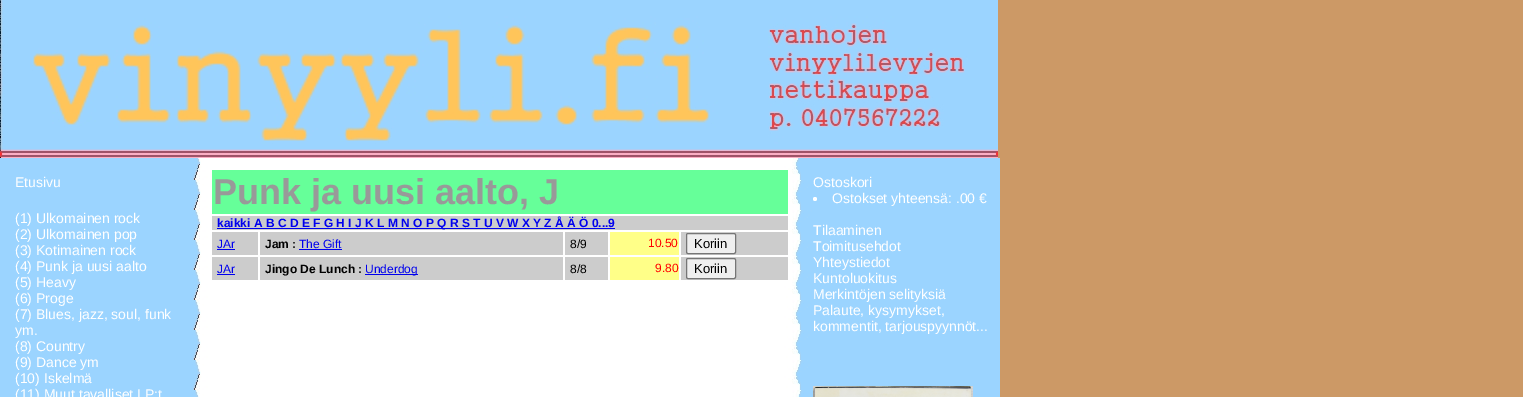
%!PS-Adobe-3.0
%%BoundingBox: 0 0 1523 397
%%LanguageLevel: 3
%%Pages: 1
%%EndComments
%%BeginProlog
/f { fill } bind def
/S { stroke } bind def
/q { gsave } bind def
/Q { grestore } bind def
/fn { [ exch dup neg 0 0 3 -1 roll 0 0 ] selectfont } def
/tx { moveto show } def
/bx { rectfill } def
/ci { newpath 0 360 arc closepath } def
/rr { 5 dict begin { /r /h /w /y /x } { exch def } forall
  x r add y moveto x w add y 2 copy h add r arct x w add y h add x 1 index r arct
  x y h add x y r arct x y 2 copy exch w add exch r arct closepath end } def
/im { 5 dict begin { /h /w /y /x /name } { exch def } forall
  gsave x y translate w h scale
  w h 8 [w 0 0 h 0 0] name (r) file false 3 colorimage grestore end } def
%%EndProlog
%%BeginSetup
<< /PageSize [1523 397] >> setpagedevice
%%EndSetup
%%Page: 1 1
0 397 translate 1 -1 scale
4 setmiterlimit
0.8 0.6 0.4 setrgbcolor
0 0 1523 397 bx
(image0.raw) 0 158 1000 239 im
(image1.raw) 0 0 998 158 im
/LiberationSans-Regular 14 fn
1 setgray
(Etusivu) 15 187 tx
(\(1\) Ulkomainen rock) 15 223 tx
(\(2\) Ulkomainen pop) 15 239 tx
(\(3\) Kotimainen rock) 15 255 tx
(\(4\) Punk ja uusi aalto) 15 271 tx
(\(5\) Heavy) 15 287 tx
(\(6\) Proge) 15 303 tx
(\(7\) Blues, jazz, soul, funk) 15 319 tx
(ym.) 15 335 tx
(\(8\) Country) 15 351 tx
(\(9\) Dance ym) 15 367 tx
(\(10\) Iskelmä) 15 383 tx
(\(11\) Muut tavalliset LP:t) 15 399 tx
0.4 1 0.6 setrgbcolor
212 170 576 44 bx
/LiberationSans-Bold 36 fn
0.6 setgray
(Punk ja uusi aalto, J) 213 204 tx
0.8 setgray
212 216 576 14 bx
0 0 0.933 setrgbcolor
217 228 398 1 bx
/LiberationSans-Bold 12 fn
(kaikki A B C D E F G H I J K L M N O P Q R S T U V W X Y Z Å Ä Ö 0...9) 217 227 tx
0.8 setgray
212 232 46 23 bx
/LiberationSans-Regular 12 fn
0 0 0.933 setrgbcolor
(JAr) 217 248 tx
217 249 18 1 bx
0.8 setgray
260 232 303 23 bx
/LiberationSans-Bold 12 fn
0 setgray
(Jam :) 265 248 tx
/LiberationSans-Regular 12 fn
0 0 0.933 setrgbcolor
(The Gift) 299 248 tx
299 249 43 1 bx
0.8 setgray
565 232 43 23 bx
0 setgray
(8/9) 570 248 tx
1 1 0.533 setrgbcolor
610 232 69 23 bx
1 0 0 setrgbcolor
(10.50) 648 247 tx
0.8 setgray
681 232 107 23 bx
0.937 setgray
686.5 233.5 49 20 1.5 rr q f Q
0.463 setgray
S
/LiberationSans-Regular 13 fn
0 setgray
(Koriin) 694 248 tx
0.8 setgray
212 257 46 23 bx
/LiberationSans-Regular 12 fn
0 0 0.933 setrgbcolor
(JAr) 217 273 tx
217 274 18 1 bx
0.8 setgray
260 257 303 23 bx
/LiberationSans-Bold 12 fn
0 setgray
(Jingo De Lunch :) 265 273 tx
0 0 0.933 setrgbcolor
365 274 53 1 bx
/LiberationSans-Regular 12 fn
(Underdog) 365 273 tx
0.8 setgray
565 257 43 23 bx
0 setgray
(8/8) 570 273 tx
1 1 0.533 setrgbcolor
610 257 69 23 bx
1 0 0 setrgbcolor
(9.80) 655 272 tx
0.8 setgray
681 257 107 23 bx
0.937 setgray
686.5 258.5 49 20 1.5 rr q f Q
0.463 setgray
S
/LiberationSans-Regular 13 fn
0 setgray
(Koriin) 694 273 tx
/LiberationSans-Regular 14 fn
1 setgray
(Ostoskori) 813 187 tx
815 199 2 ci f
(Ostokset yhteensä: .00 €) 832 203 tx
(Tilaaminen) 813 235 tx
(Toimitusehdot) 813 251 tx
(Yhteystiedot) 813 267 tx
(Kuntoluokitus) 813 283 tx
(Merkintöjen selityksiä) 813 299 tx
(Palaute, kysymykset,) 813 315 tx
(kommentit, tarjouspyynnöt...) 813 331 tx
(image2.raw) 813 386 160 11 im
showpage
%%EOF
